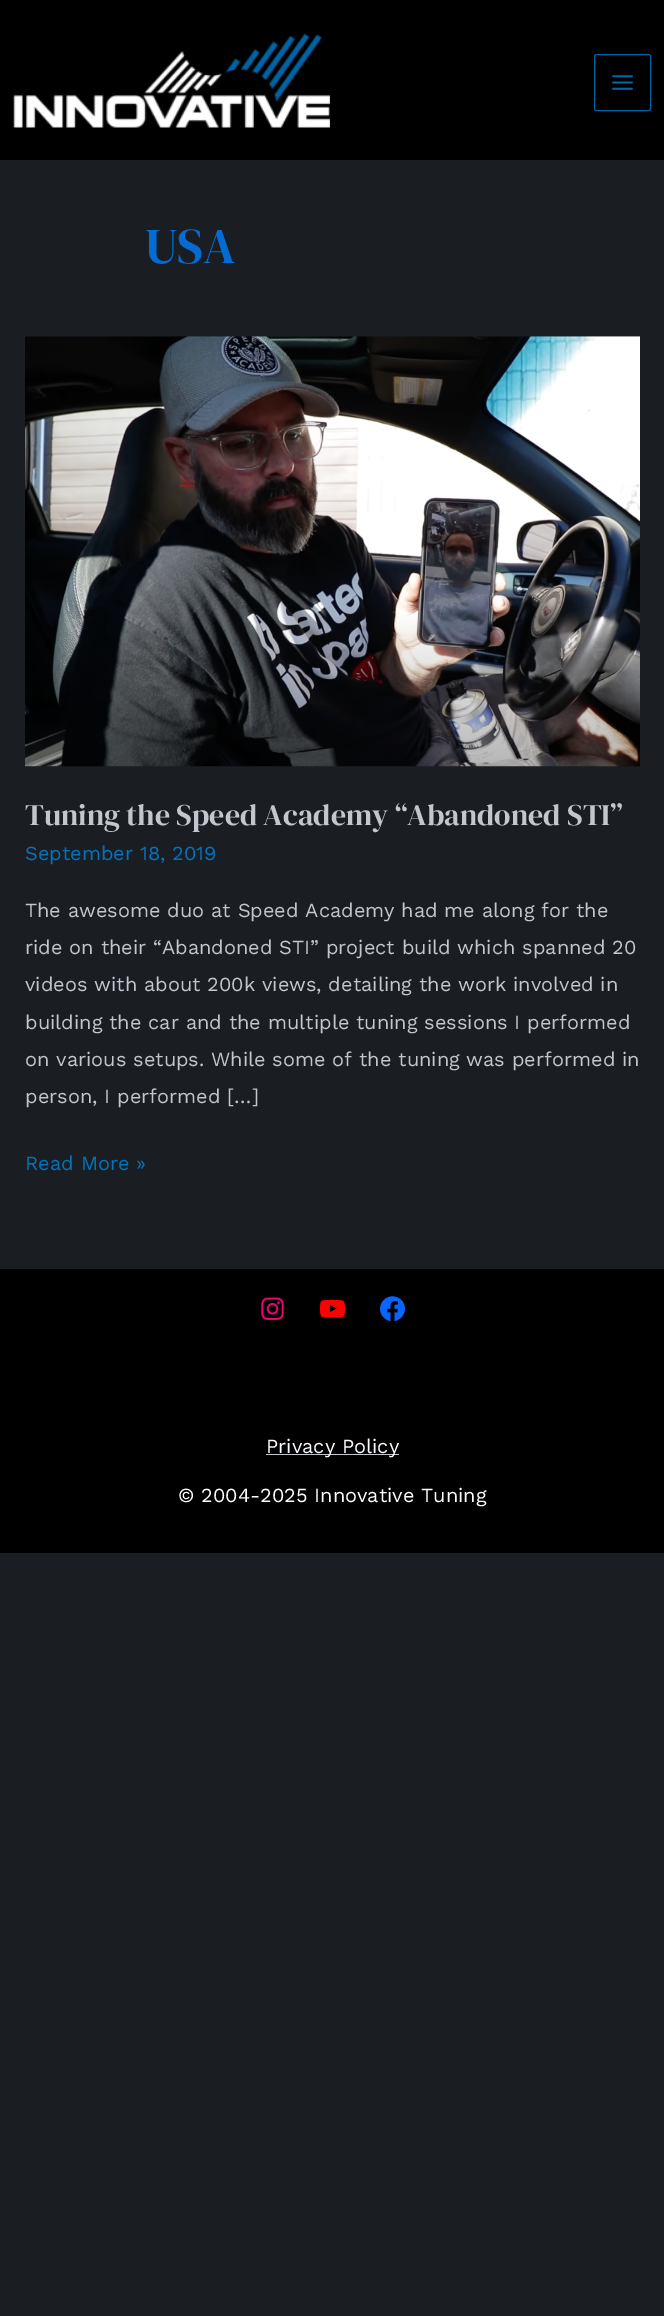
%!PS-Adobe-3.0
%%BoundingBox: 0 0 664 2316
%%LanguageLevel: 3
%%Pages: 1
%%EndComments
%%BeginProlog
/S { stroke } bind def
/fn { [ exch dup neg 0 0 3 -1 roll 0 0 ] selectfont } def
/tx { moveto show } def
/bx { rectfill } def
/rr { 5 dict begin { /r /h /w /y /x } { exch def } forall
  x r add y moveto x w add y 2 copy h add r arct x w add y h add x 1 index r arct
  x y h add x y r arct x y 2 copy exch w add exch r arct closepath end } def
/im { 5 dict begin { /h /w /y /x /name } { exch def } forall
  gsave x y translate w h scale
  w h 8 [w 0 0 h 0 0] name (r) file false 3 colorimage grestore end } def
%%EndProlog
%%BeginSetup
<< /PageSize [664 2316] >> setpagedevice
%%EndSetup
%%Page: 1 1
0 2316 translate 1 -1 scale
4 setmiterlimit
0.102 0.118 0.137 setrgbcolor
0 0 664 2316 bx
0 setgray
0 0 664 160 bx
(image0.raw) 13 33 317 95 im
0 0.392 0.651 setrgbcolor
594.5 54.5 56 56 2 rr S
(image1.raw) 612 75 21 15 im
/DMSerifDisplay-Regular 50 fn
0.016 0.42 0.824 setrgbcolor
(USA) 145 263 tx
(image2.raw) 25 336 615 431 im
/DMSerifDisplay-Regular 30 fn
0.761 0.78 0.808 setrgbcolor
(Tuning the Speed Academy “Abandoned STI”) 25 825 tx
/WorkSans-Regular 20 fn
0.008 0.455 0.745 setrgbcolor
(September 18, 2019) 25 860 tx
0.761 0.78 0.808 setrgbcolor
(The awesome duo at Speed Academy had me along for the) 25 917 tx
(ride on their “Abandoned STI” project build which spanned 20) 25 954 tx
(videos with about 200k views, detailing the work involved in) 25 991 tx
(building the car and the multiple tuning sessions I performed) 25 1029 tx
(on various setups. While some of the tuning was performed in) 25 1066 tx
(person, I performed […]) 25 1103 tx
0.008 0.455 0.745 setrgbcolor
(Read More ») 25 1170 tx
0 setgray
0 1269 664 284 bx
(image3.raw) 261 1297 23 23 im
(image4.raw) 320 1299 25 19 im
(image5.raw) 380 1296 25 26 im
0.761 0.78 0.808 setrgbcolor
266 1454 133 1 bx
1 setgray
(Privacy Policy) 266 1453 tx
(© 2004-2025 Innovative Tuning) 178 1502 tx
showpage
%%EOF
